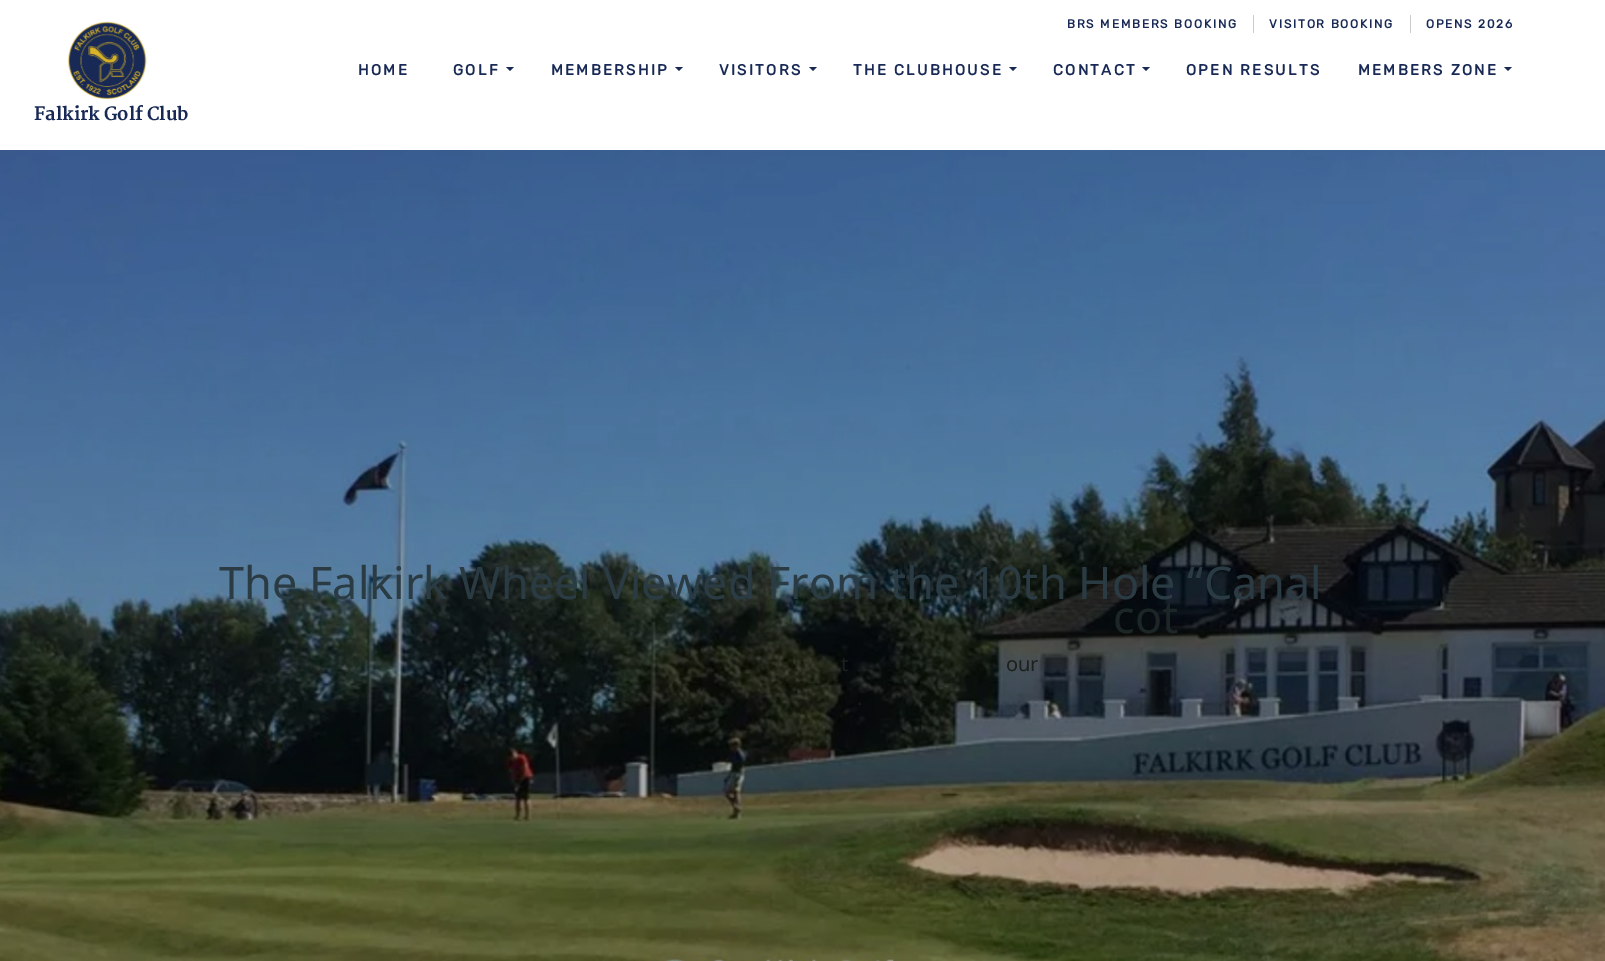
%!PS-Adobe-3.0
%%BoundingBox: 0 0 1605 961
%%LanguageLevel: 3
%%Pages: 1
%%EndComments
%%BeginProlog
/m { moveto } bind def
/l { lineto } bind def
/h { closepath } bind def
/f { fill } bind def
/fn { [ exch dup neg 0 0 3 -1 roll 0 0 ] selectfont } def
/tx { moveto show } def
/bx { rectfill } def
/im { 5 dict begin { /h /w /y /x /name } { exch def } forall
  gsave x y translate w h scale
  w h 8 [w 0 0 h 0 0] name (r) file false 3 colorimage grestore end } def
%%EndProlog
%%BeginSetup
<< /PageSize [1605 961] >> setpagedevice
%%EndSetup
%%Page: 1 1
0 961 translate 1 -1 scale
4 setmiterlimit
1 setgray
0 0 1605 961 bx
0.8 setgray
1253 15 1 18 bx
/Rubik-Bold 12 fn
0.094 0.161 0.333 setrgbcolor
1067 28 m 1.75 0 (BRS MEMBERS BOOKING) ashow
0.8 setgray
1410 15 1 18 bx
0.094 0.161 0.333 setrgbcolor
1269 28 m 1.75 0 (VISITOR BOOKING) ashow
1426 28 m 1.75 0 (OPENS 2026) ashow
/Rubik-Bold 15 fn
358 75 m 2.25 0 (HOME) ashow
453 75 m 2.25 0 (GOLF) ashow
506 67 m 514 67 l 510 71 l h f
551 75 m 2.25 0 (MEMBERSHIP) ashow
675 67 m 683 67 l 679 71 l h f
719 75 m 2.25 0 (VISITORS) ashow
809 67 m 817 67 l 813 71 l h f
853 75 m 2.25 0 (THE CLUBHOUSE) ashow
1009 67 m 1017 67 l 1013 71 l h f
1053 75 m 2.25 0 (CONTACT) ashow
1142 67 m 1150 67 l 1146 71 l h f
1186 75 m 2.25 0 (OPEN RESULTS) ashow
1358 75 m 2.25 0 (MEMBERS ZONE) ashow
1504 67 m 1512 67 l 1508 71 l h f
(image0.raw) 67 21 80 78 im
/Martel-ExtraBold 18 fn
(Falkirk Golf Club) 34 120 tx
0 setgray
0 150 1605 811 bx
(image1.raw) 0 150 1605 811 im
/NotoSans-Regular 45 fn
0.169 0.231 0.267 setrgbcolor
(The Falkirk Wheel Viewed From the 10th Hole “Canal) 219 599 tx
/NotoSans-Regular 20 fn
0.094 0.11 0.078 setrgbcolor
(.) 857 705 tx
/NotoSans-Regular 45 fn
0.114 0.149 0.149 setrgbcolor
(cot) 1113 633 tx
/NotoSans-Regular 20 fn
0.106 0.129 0.114 setrgbcolor
(t) 841 671 tx
(our) 1006 671 tx
showpage
%%EOF
